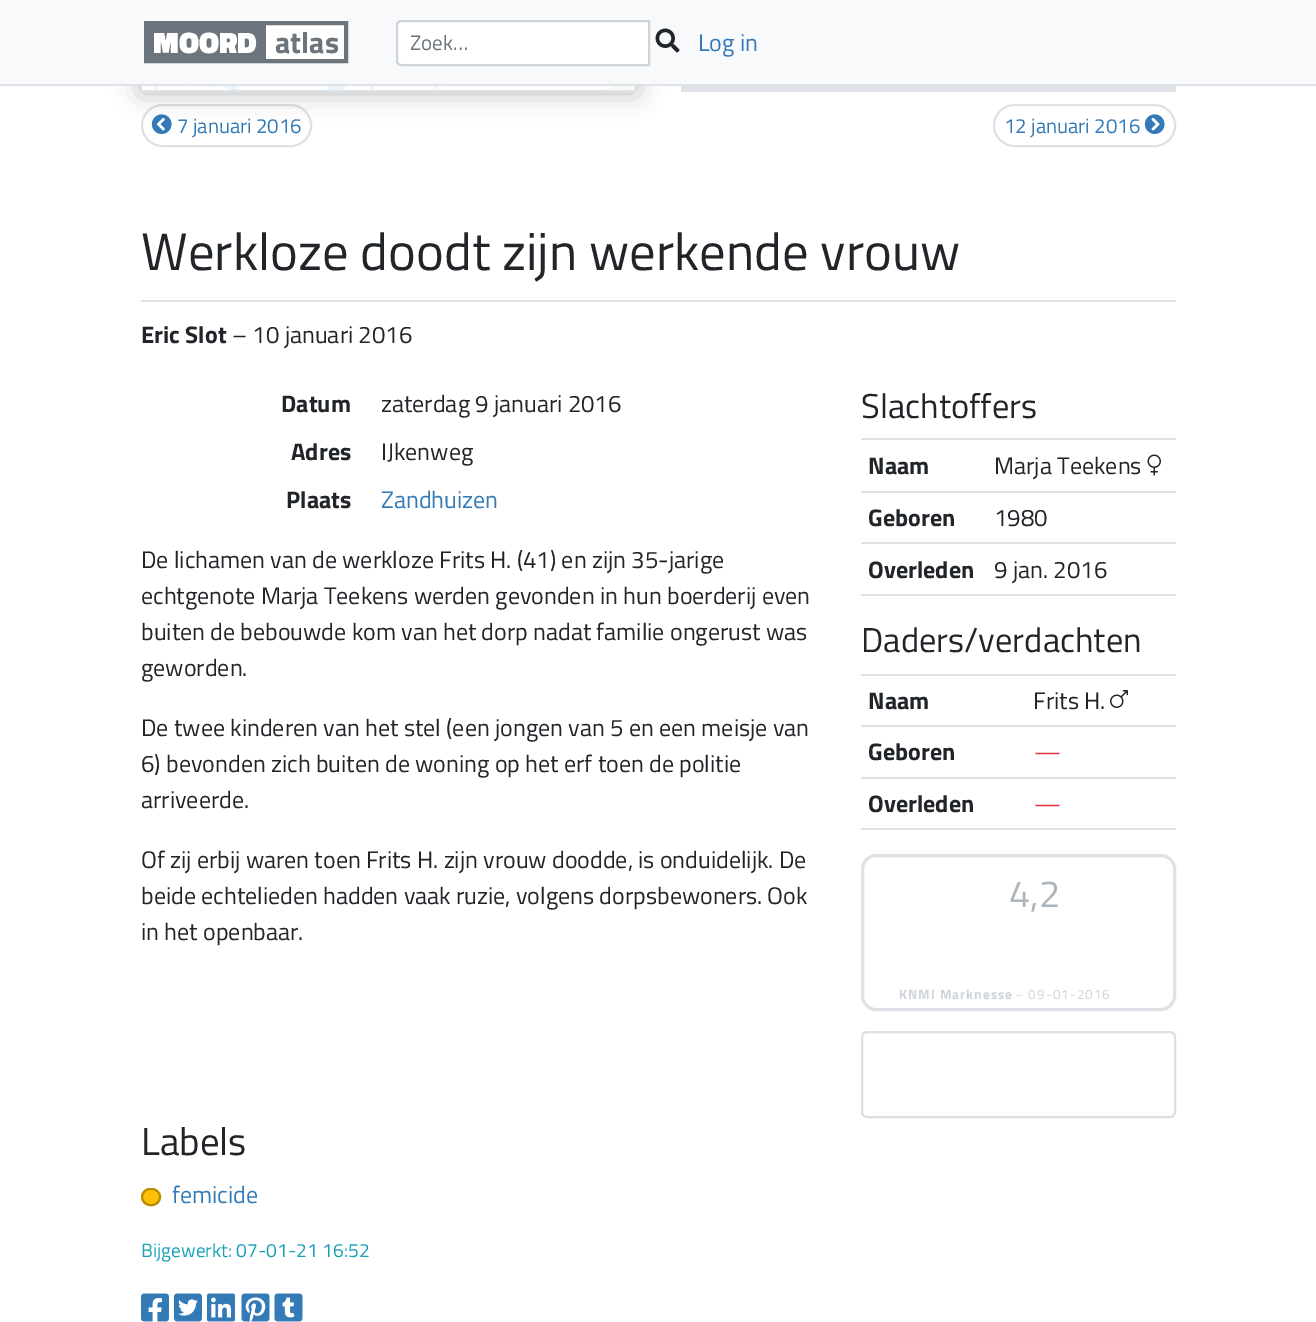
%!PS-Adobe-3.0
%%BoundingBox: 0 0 1316 1322
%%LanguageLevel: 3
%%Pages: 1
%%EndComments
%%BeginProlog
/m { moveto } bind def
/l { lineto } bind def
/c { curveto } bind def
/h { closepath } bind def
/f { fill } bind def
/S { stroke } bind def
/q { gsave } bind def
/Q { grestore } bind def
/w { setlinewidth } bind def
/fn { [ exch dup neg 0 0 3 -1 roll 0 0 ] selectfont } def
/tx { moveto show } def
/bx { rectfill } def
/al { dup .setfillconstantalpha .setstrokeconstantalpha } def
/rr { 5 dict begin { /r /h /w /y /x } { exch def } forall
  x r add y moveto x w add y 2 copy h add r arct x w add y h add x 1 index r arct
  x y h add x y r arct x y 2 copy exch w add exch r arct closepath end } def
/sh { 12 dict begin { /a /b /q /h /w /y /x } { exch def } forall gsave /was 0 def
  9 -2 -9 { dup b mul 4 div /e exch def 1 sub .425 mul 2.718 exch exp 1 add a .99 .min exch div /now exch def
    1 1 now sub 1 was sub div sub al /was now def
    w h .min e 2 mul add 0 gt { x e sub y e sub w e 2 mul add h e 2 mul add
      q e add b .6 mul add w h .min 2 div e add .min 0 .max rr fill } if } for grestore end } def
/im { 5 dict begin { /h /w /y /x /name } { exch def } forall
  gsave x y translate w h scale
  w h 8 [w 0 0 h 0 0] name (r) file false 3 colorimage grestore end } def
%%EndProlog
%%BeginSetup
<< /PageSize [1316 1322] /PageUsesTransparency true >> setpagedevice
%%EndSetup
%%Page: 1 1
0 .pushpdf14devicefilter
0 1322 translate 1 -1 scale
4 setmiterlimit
1 setgray
0 0 1316 1322 bx
0.871 0.886 0.902 setrgbcolor
2 w
142 105 169 41 20 rr S
(image4.raw) 151 114 21 21 im
0 setgray
141 -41 495 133 0 13.5 0.28 sh
0.871 0.886 0.902 setrgbcolor
142 -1 493 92 rectstroke
0.973 0.976 0.98 setrgbcolor
0 0 1316 84 bx
0.871 0.886 0.902 setrgbcolor
0 84 1316 2 bx
1 setgray
266 25 78 34 bx
0.424 0.459 0.49 setrgbcolor
4 w
146 23 200 38 rectstroke
148 25 118 34 bx
/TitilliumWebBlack-Black 30 fn
1 setgray
(MOORD) 153 53 tx
/TitilliumWeb-Bold 30 fn
0.424 0.459 0.49 setrgbcolor
(atlas) 275 53 tx
1 setgray
401 21 m 649 21 l 649 65 l 401 65 l 399 65 397 63 397 61 c 397 25 l 397 23 399 21 401 21 c h q f Q
0.808 0.831 0.855 setrgbcolor
2 w
S
/TitilliumWeb-Regular 21 fn
0.424 0.459 0.49 setrgbcolor
(Zoek…) 410 50 tx
(image0.raw) 655 28 25 25 im
/TitilliumWeb-Regular 24 fn
0.2 0.478 0.718 setrgbcolor
(Log in) 698 51 tx
(image1.raw) 142 86 59 4 im
(image2.raw) 201 86 384 4 im
(image3.raw) 585 86 49 4 im
0.7 al
1 setgray
433 86 202 4 bx
1 al
0.871 0.886 0.902 setrgbcolor
681 86 495 6 bx
/TitilliumWeb-Regular 20.5 fn
0.2 0.478 0.718 setrgbcolor
(7 januari 2016) 177 133 tx
0.871 0.886 0.902 setrgbcolor
994 105 181 41 20 rr S
0.2 0.478 0.718 setrgbcolor
(12 januari 2016) 1004 133 tx
(image5.raw) 1144 114 21 21 im
0.871 0.886 0.902 setrgbcolor
141 300 1035 2 bx
/TitilliumWeb-Regular 52.75 fn
0.129 0.145 0.161 setrgbcolor
(Werkloze doodt zijn werkende vrouw) 141 270 tx
/TitilliumWeb-Bold 24 fn
(Eric Slot) 141 343 tx
/TitilliumWeb-Regular 24 fn
(– 10 januari 2016) 232 343 tx
/TitilliumWeb-Bold 24 fn
(Datum) 281 412 tx
/TitilliumWeb-Regular 24 fn
(zaterdag 9 januari 2016) 381 412 tx
/TitilliumWeb-Bold 24 fn
(Adres) 291 460 tx
/TitilliumWeb-Regular 24 fn
(IJkenweg) 381 460 tx
/TitilliumWeb-Bold 24 fn
(Plaats) 286 508 tx
/TitilliumWeb-Regular 24 fn
0.2 0.478 0.718 setrgbcolor
(Zandhuizen) 381 508 tx
0.129 0.145 0.161 setrgbcolor
(De lichamen van de werkloze Frits H. \(41\) en zijn 35-jarige) 141 568 tx
(echtgenote Marja Teekens werden gevonden in hun boerderij even) 141 604 tx
(buiten de bebouwde kom van het dorp nadat familie ongerust was) 141 640 tx
(geworden.) 141 676 tx
(De twee kinderen van het stel \(een jongen van 5 en een meisje van) 141 736 tx
(6\) bevonden zich buiten de woning op het erf toen de politie) 141 772 tx
(arriveerde.) 141 808 tx
(Of zij erbij waren toen Frits H. zijn vrouw doodde, is onduidelijk. De) 141 868 tx
(beide echtelieden hadden vaak ruzie, volgens dorpsbewoners. Ook) 141 904 tx
(in het openbaar.) 141 940 tx
/TitilliumWeb-Regular 34.5 fn
(Slachtoffers) 861 418 tx
0.871 0.886 0.902 setrgbcolor
861 594 315 2 bx
/TitilliumWeb-Bold 24 fn
0.129 0.145 0.161 setrgbcolor
(Naam) 868 474 tx
0.871 0.886 0.902 setrgbcolor
861 438 315 2 bx
/TitilliumWeb-Regular 24 fn
0.129 0.145 0.161 setrgbcolor
(Marja Teekens) 994 474 tx
(image6.raw) 1147 454 14 22 im
/TitilliumWeb-Bold 24 fn
(Geboren) 868 526 tx
0.871 0.886 0.902 setrgbcolor
861 491 315 2 bx
/TitilliumWeb-Regular 24 fn
0.129 0.145 0.161 setrgbcolor
(1980) 994 526 tx
/TitilliumWeb-Bold 24 fn
(Overleden) 868 578 tx
0.871 0.886 0.902 setrgbcolor
861 542 315 2 bx
/TitilliumWeb-Regular 24 fn
0.129 0.145 0.161 setrgbcolor
(9 jan. 2016) 994 578 tx
/TitilliumWeb-Regular 34.5 fn
(Daders/verdachten) 861 652 tx
0.871 0.886 0.902 setrgbcolor
861 828 315 2 bx
/TitilliumWeb-Bold 24 fn
0.129 0.145 0.161 setrgbcolor
(Naam) 868 709 tx
0.871 0.886 0.902 setrgbcolor
861 674 315 2 bx
/TitilliumWeb-Regular 24 fn
0.129 0.145 0.161 setrgbcolor
(Frits H.) 1033 709 tx
(image7.raw) 1110 690 18 18 im
/TitilliumWeb-Bold 24 fn
(Geboren) 868 760 tx
0.871 0.886 0.902 setrgbcolor
861 725 315 2 bx
/TitilliumWeb-Italic 24 fn
0.863 0.208 0.271 setrgbcolor
(—) 1033 760 tx
/TitilliumWeb-Bold 24 fn
0.129 0.145 0.161 setrgbcolor
(Overleden) 868 812 tx
0.871 0.886 0.902 setrgbcolor
861 777 315 2 bx
/TitilliumWeb-Italic 24 fn
0.863 0.208 0.271 setrgbcolor
(—) 1033 812 tx
0.871 0.886 0.902 setrgbcolor
3 w
862.5 855.5 312 154 13.5 rr S
/TitilliumWeb-Regular 38 fn
0.678 0.71 0.741 setrgbcolor
(4,2) 1009 907 tx
/TitilliumWeb-Bold 13.5 fn
0.808 0.831 0.855 setrgbcolor
899 999 m 1 0 (KNMI Marknesse) ashow
/TitilliumWeb-Regular 13.5 fn
1015 999 m 1 0 (– 09-01-2016) ashow
0.875 setgray
2 w
862 1032 313 85 5 rr S
/TitilliumWeb-Regular 39 fn
0.129 0.145 0.161 setrgbcolor
(Labels) 141 1155 tx
1 0.757 0.027 setrgbcolor
142 1189 18 16 8 rr q f Q
0.718 0.541 0 setrgbcolor
S
/TitilliumWeb-Regular 24 fn
0.2 0.478 0.718 setrgbcolor
(femicide) 172 1203 tx
/TitilliumWeb-Regular 19.25 fn
0.09 0.635 0.722 setrgbcolor
(Bijgewerkt: 07-01-21 16:52) 141 1257 tx
(image8.raw) 141 1293 28 29 im
(image9.raw) 174 1293 28 29 im
(image10.raw) 207 1293 28 29 im
(image11.raw) 241 1293 29 29 im
(image12.raw) 274 1293 29 29 im
.poppdf14devicefilter showpage
%%EOF
